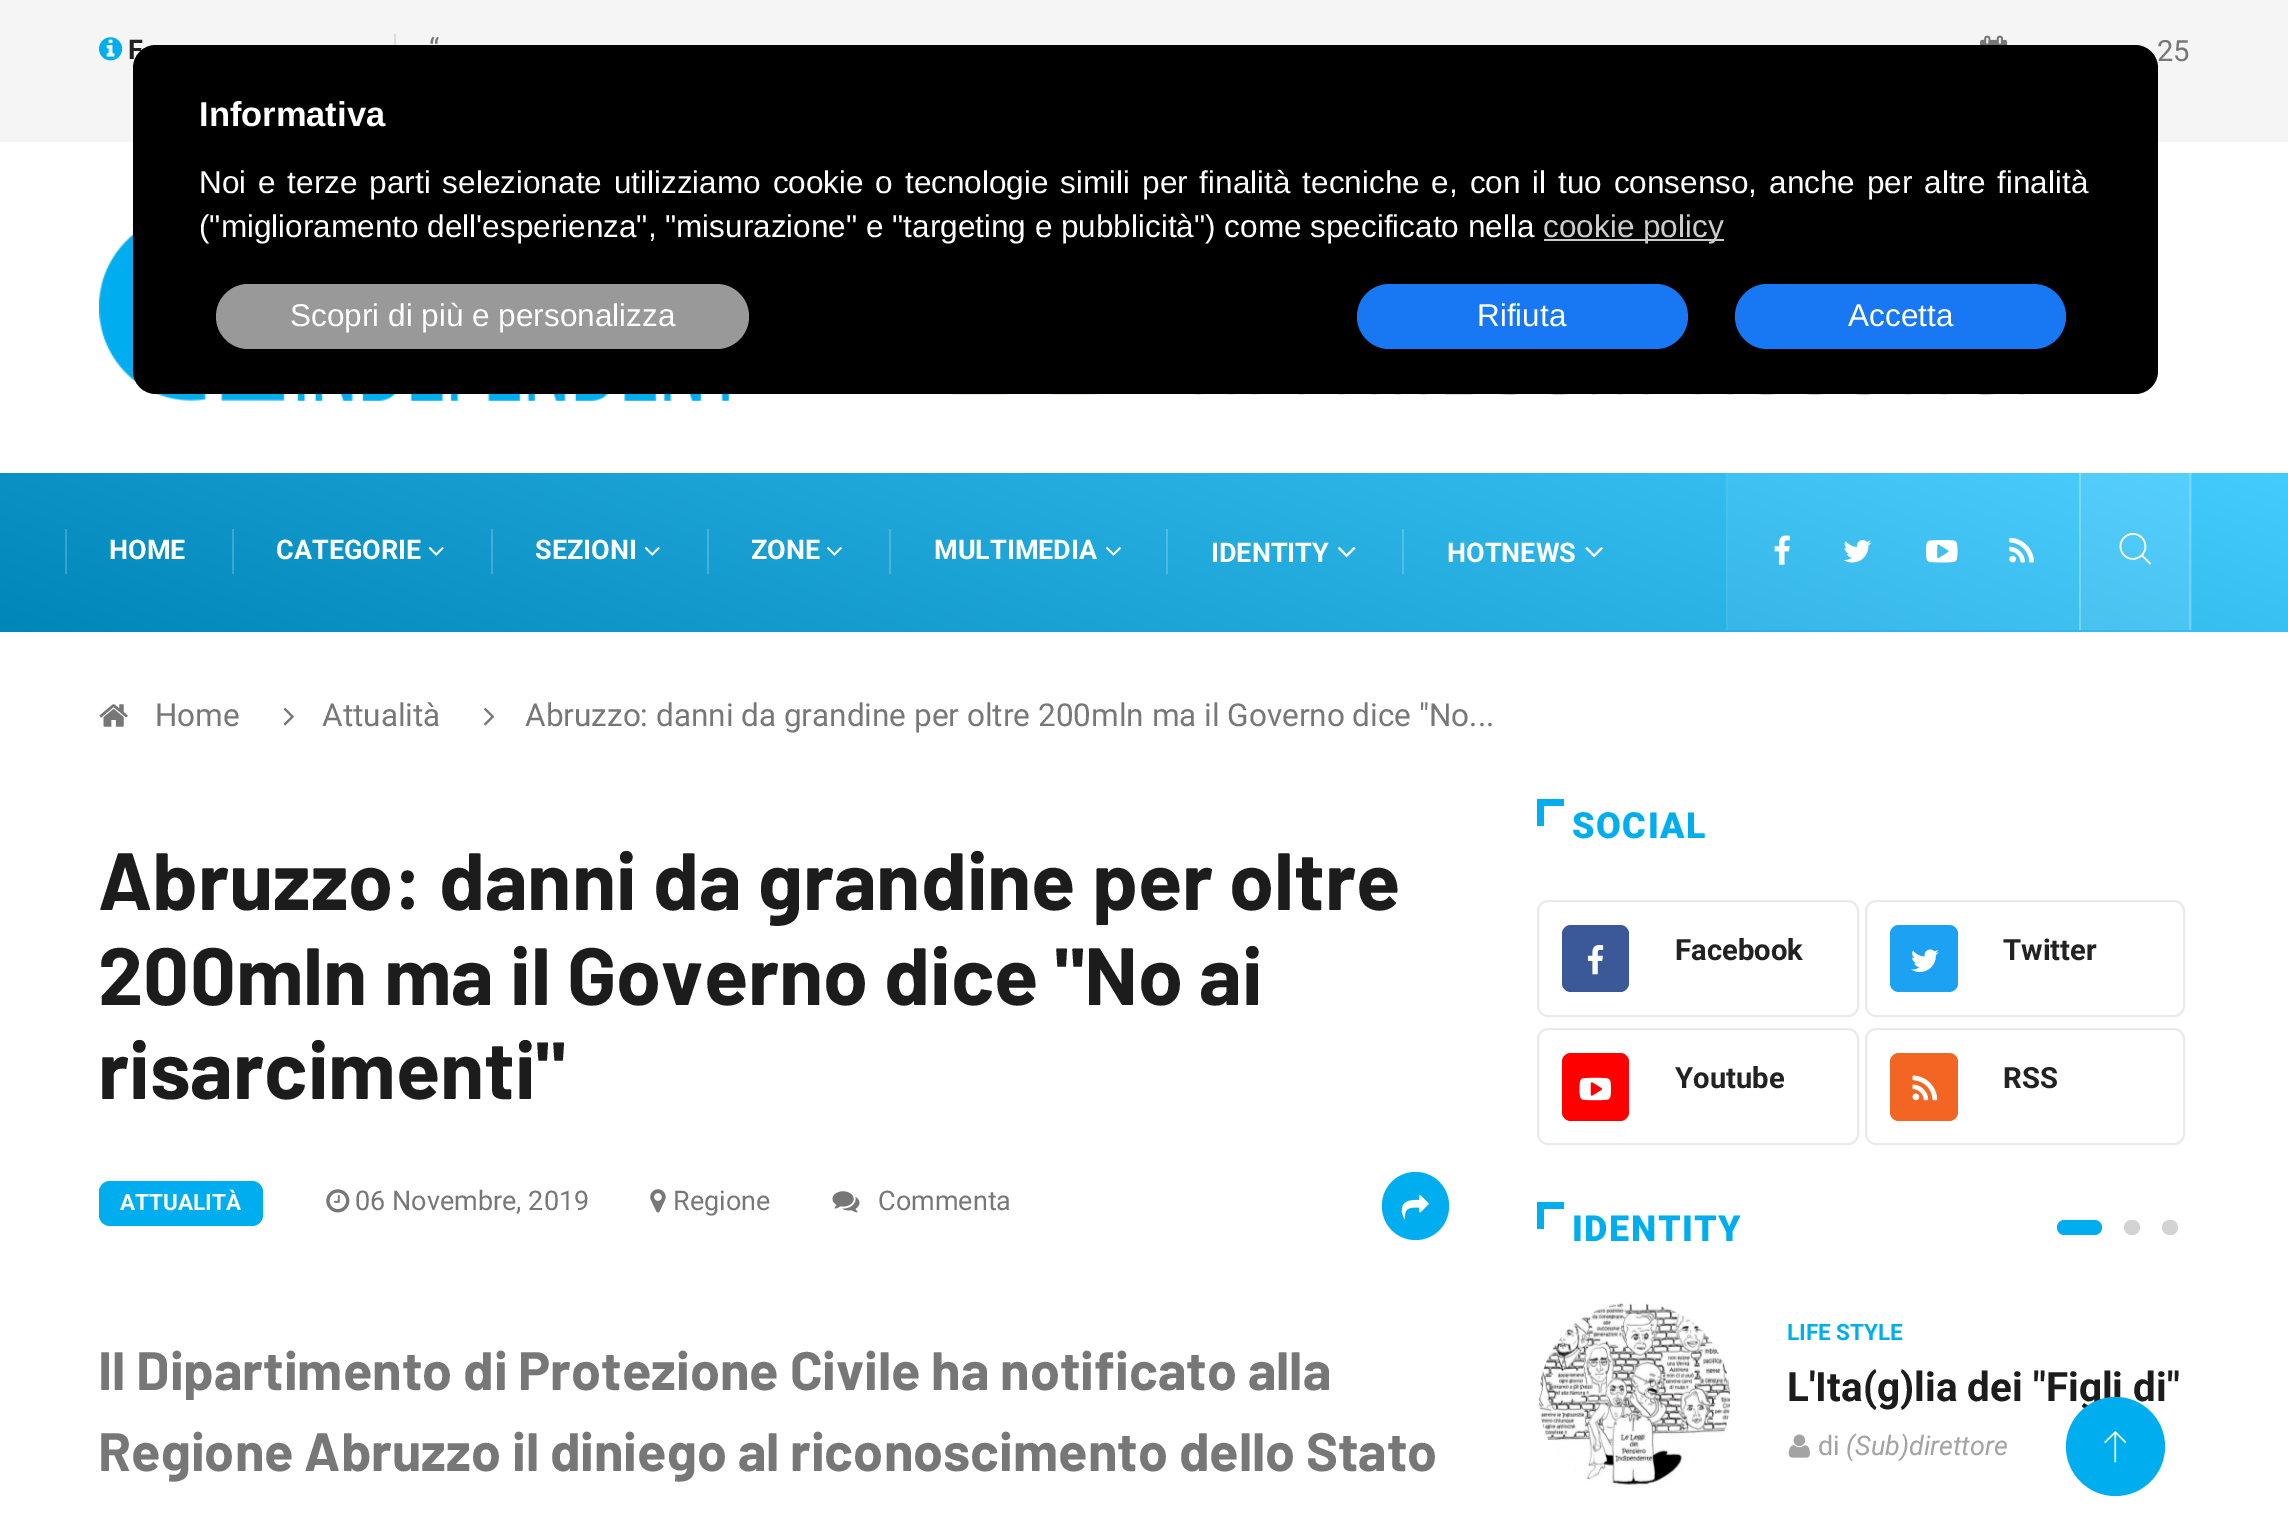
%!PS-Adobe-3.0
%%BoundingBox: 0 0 2288 1528
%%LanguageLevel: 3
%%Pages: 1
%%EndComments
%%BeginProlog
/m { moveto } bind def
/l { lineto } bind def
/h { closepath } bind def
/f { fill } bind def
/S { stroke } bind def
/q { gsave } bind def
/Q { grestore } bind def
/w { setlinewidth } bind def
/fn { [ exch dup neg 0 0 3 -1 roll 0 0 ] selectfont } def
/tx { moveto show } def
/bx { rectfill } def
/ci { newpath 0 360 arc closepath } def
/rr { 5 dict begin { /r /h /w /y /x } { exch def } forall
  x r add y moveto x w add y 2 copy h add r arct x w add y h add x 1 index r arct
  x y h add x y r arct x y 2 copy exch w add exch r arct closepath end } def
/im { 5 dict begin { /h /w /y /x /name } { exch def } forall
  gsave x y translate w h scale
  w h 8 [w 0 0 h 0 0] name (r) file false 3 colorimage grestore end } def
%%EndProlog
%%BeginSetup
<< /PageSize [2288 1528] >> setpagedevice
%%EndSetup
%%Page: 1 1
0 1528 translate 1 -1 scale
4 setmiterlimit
1 setgray
0 0 2288 1528 bx
0.961 setgray
0 0 2288 142 bx
0.871 0.859 0.859 setrgbcolor
394 34 2 11 bx
(image0.raw) 99 37 24 24 im
/Roboto-Bold 27 fn
0.133 setgray
(F) 128 59 tx
/Roboto-Regular 29.25 fn
0.467 setgray
(“) 429 59 tx
(image1.raw) 1980 35 28 10 im
(25) 2157 61 tx
(image2.raw) 99 233 631 168 im
(image3.raw) 949 394 1113 2 im
q 0 473 m 2288 473 l 2288 632 l 0 632 l h clip newpath
<< /ShadingType 2 /ColorSpace /DeviceRGB /Coords [985 991 1304 114] /Extend [true true] /Function << /FunctionType 2 /Domain [0 1] /C0 [0 0.525 0.722] /C1 [0.267 0.8 1] /N 1 >> >> shfill Q
q 1402 529 m 1404 529 l 1404 574 l 1402 574 l h clip newpath
<< /ShadingType 2 /ColorSpace /DeviceRGB /Coords [985 991 1304 114] /Extend [true true] /Function << /FunctionType 2 /Domain [0 1] /C0 [0.2 0.62 0.776] /C1 [0.412 0.839 1] /N 1 >> >> shfill Q
q 1166 529 m 1168 529 l 1168 574 l 1166 574 l h clip newpath
<< /ShadingType 2 /ColorSpace /DeviceRGB /Coords [985 991 1304 114] /Extend [true true] /Function << /FunctionType 2 /Domain [0 1] /C0 [0.2 0.62 0.776] /C1 [0.412 0.839 1] /N 1 >> >> shfill Q
q 889 529 m 891 529 l 891 574 l 889 574 l h clip newpath
<< /ShadingType 2 /ColorSpace /DeviceRGB /Coords [985 991 1304 114] /Extend [true true] /Function << /FunctionType 2 /Domain [0 1] /C0 [0.2 0.62 0.776] /C1 [0.412 0.839 1] /N 1 >> >> shfill Q
q 707 529 m 709 529 l 709 574 l 707 574 l h clip newpath
<< /ShadingType 2 /ColorSpace /DeviceRGB /Coords [985 991 1304 114] /Extend [true true] /Function << /FunctionType 2 /Domain [0 1] /C0 [0.2 0.62 0.776] /C1 [0.412 0.839 1] /N 1 >> >> shfill Q
q 491 529 m 493 529 l 493 574 l 491 574 l h clip newpath
<< /ShadingType 2 /ColorSpace /DeviceRGB /Coords [985 991 1304 114] /Extend [true true] /Function << /FunctionType 2 /Domain [0 1] /C0 [0.2 0.62 0.776] /C1 [0.412 0.839 1] /N 1 >> >> shfill Q
q 232 529 m 234 529 l 234 574 l 232 574 l h clip newpath
<< /ShadingType 2 /ColorSpace /DeviceRGB /Coords [985 991 1304 114] /Extend [true true] /Function << /FunctionType 2 /Domain [0 1] /C0 [0.2 0.62 0.776] /C1 [0.412 0.839 1] /N 1 >> >> shfill Q
q 65 529 m 67 529 l 67 574 l 65 574 l h clip newpath
<< /ShadingType 2 /ColorSpace /DeviceRGB /Coords [985 991 1304 114] /Extend [true true] /Function << /FunctionType 2 /Domain [0 1] /C0 [0.2 0.62 0.776] /C1 [0.412 0.839 1] /N 1 >> >> shfill Q
q 2081 473 m 2192 473 l 2192 630 l 2081 630 l h clip newpath
<< /ShadingType 2 /ColorSpace /DeviceRGB /Coords [985 991 1304 114] /Extend [true true] /Function << /FunctionType 2 /Domain [0 1] /C0 [0.102 0.573 0.749] /C1 [0.341 0.82 1] /N 1 >> >> shfill Q
q 2189 473 m 2191 473 l 2191 630 l 2189 630 l h clip newpath
<< /ShadingType 2 /ColorSpace /DeviceRGB /Coords [985 991 1304 114] /Extend [true true] /Function << /FunctionType 2 /Domain [0 1] /C0 [0.282 0.659 0.8] /C1 [0.475 0.855 1] /N 1 >> >> shfill Q
q 1728 473 m 2079 473 l 2079 630 l 1728 630 l h clip newpath
<< /ShadingType 2 /ColorSpace /DeviceRGB /Coords [985 991 1304 114] /Extend [true true] /Function << /FunctionType 2 /Domain [0 1] /C0 [0.051 0.549 0.737] /C1 [0.302 0.812 1] /N 1 >> >> shfill Q
q 1726 473 m 1728 473 l 1728 630 l 1726 630 l h clip newpath
<< /ShadingType 2 /ColorSpace /DeviceRGB /Coords [985 991 1304 114] /Extend [true true] /Function << /FunctionType 2 /Domain [0 1] /C0 [0.098 0.573 0.749] /C1 [0.337 0.82 1] /N 1 >> >> shfill Q
q 2079 473 m 2081 473 l 2081 630 l 2079 630 l h clip newpath
<< /ShadingType 2 /ColorSpace /DeviceRGB /Coords [985 991 1304 114] /Extend [true true] /Function << /FunctionType 2 /Domain [0 1] /C0 [0.349 0.694 0.82] /C1 [0.522 0.871 1] /N 1 >> >> shfill Q
/Roboto-Bold 27 fn
1 setgray
(HOME) 109 559 tx
(CATEGORIE) 276 559 tx
(image4.raw) 428 547 16 9 im
(SEZIONI) 535 559 tx
(image5.raw) 644 547 16 9 im
(ZONE) 751 559 tx
(image6.raw) 827 547 15 9 im
(MULTIMEDIA) 934 559 tx
(image7.raw) 1106 547 15 9 im
(IDENTITY) 1211 562 tx
(image8.raw) 1337 547 19 11 im
(HOTNEWS) 1447 562 tx
(image9.raw) 1585 547 18 11 im
(image10.raw) 1774 535 16 30 im
(image11.raw) 1843 540 29 23 im
(image12.raw) 1926 540 32 23 im
(image13.raw) 2009 537 25 26 im
(image14.raw) 2119 533 32 32 im
(image15.raw) 99 704 29 23 im
/Roboto-Regular 31.5 fn
0.467 setgray
(Home) 155 726 tx
(image16.raw) 283 707 11 19 im
(Attualità) 322 726 tx
(image17.raw) 484 707 11 19 im
(Abruzzo: danni da grandine per oltre 200mln ma il Governo dice "No...) 525 726 tx
/Barlow-Bold 81 fn
0.11 setgray
(Abruzzo: danni da grandine per oltre) 98 910 tx
(200mln ma il Governo dice "No ai) 98 1005 tx
(risarcimenti") 98 1099 tx
0 0.682 0.937 setrgbcolor
99 1181 164 45 11 rr f
/Roboto-Bold 22.5 fn
1 setgray
(ATTUALITÀ) 120 1210 tx
(image18.raw) 326 1189 24 24 im
/Roboto-Regular 27 fn
0.467 setgray
(06 Novembre, 2019) 355 1210 tx
(image19.raw) 650 1189 16 24 im
(Regione) 673 1210 tx
(image20.raw) 832 1191 28 22 im
(Commenta) 878 1210 tx
0 0.682 0.937 setrgbcolor
1382 1172 67 68 33.5 rr f
(image21.raw) 1401 1195 28 25 im
/Barlow-Bold 54 fn
0.467 setgray
(Il Dipartimento di Protezione Civile ha notificato alla) 98 1390 tx
(Regione Abruzzo il diniego al riconoscimento dello Stato) 98 1471 tx
0 0.682 0.937 setrgbcolor
1537 799 7 27 bx
1537 799 27 7 bx
/Roboto-Black 36 fn
1572 838 m 1.5 0 (SOCIAL) ashow
0.918 setgray
2 w
1538 901 320 115 10 rr S
0.231 0.349 0.596 setrgbcolor
1562 925 67 67 9 rr f
(image22.raw) 1587 945 17 30 im
/Roboto-Bold 29.25 fn
0.133 setgray
(Facebook) 1675 960 tx
0.918 setgray
1866 901 318 115 10 rr S
0.114 0.631 0.949 setrgbcolor
1890 925 68 67 9 rr f
(image23.raw) 1911 949 28 23 im
0.133 setgray
(Twitter) 2003 960 tx
0.918 setgray
1538 1029 320 115 10 rr S
1 0 0 setrgbcolor
1562 1053 67 68 9 rr f
(image24.raw) 1579 1077 32 24 im
0.133 setgray
(Youtube) 1675 1088 tx
0.918 setgray
1866 1029 318 115 10 rr S
0.949 0.396 0.133 setrgbcolor
1890 1053 68 68 9 rr f
(image25.raw) 1912 1075 26 26 im
0.133 setgray
(RSS) 2003 1088 tx
0 0.682 0.937 setrgbcolor
1537 1202 7 27 bx
1537 1202 27 7 bx
/Roboto-Black 36 fn
1572 1241 m 1.5 0 (IDENTITY) ashow
2057 1220 45 15 7.5 rr f
0.827 setgray
2124 1220 16 15 7.5 rr f
2162 1220 16 15 7.5 rr f
(image26.raw) 1539 1303 192 183 im
/Roboto-Bold 22.5 fn
0 0.682 0.937 setrgbcolor
(LIFE STYLE) 1787 1340 tx
/Roboto-Bold 40.5 fn
0.11 setgray
(L'Ita\(g\)lia dei "Figli di") 1787 1401 tx
(image27.raw) 1788 1434 22 24 im
/Roboto-Regular 27 fn
0.639 setgray
(di) 1818 1455 tx
/Roboto-Italic 27 fn
(\(Sub\)direttore) 1846 1455 tx
0 0.682 0.937 setrgbcolor
2115.5 1446.5 49.5 ci f
(image28.raw) 2104 1431 23 32 im
0 setgray
133 45 2025 349 23 rr f
/LiberationSans-Bold 34.5 fn
1 setgray
(Informativa) 199 126 tx
/LiberationSans-Regular 31.5 fn
199 193 m 3.1 0 32 (Noi e terze parti selezionate utilizziamo cookie o tecnologie simili per finalità tecniche e, con il tuo consenso, anche per altre finalità) widthshow
(\("miglioramento dell'esperienza", "misurazione" e "targeting e pubblicità"\) come specificato nella) 199 237 tx
0.8 setgray
1544 239 180 2 bx
(cookie policy) 1543 237 tx
0.6 setgray
216 284 533 65 32.5 rr f
1 setgray
(Scopri di più e personalizza) 290 326 tx
0.094 0.467 0.949 setrgbcolor
1357 284 331 65 32.5 rr f
1 setgray
(Rifiuta) 1477 326 tx
0.094 0.467 0.949 setrgbcolor
1735 284 331 65 32.5 rr f
1 setgray
(Accetta) 1848 326 tx
showpage
%%EOF
